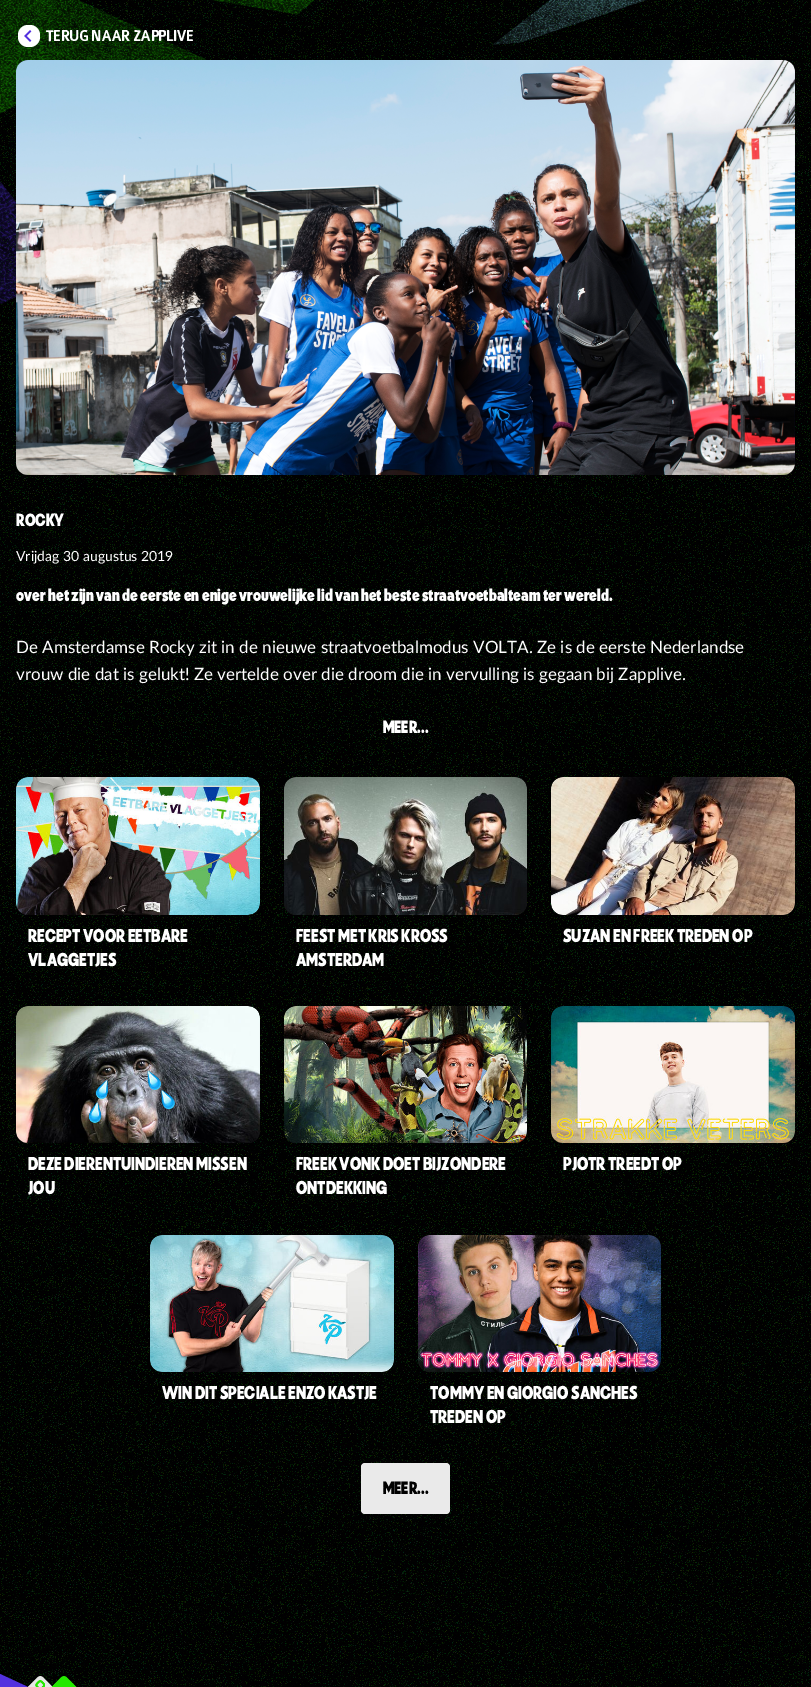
%!PS-Adobe-3.0
%%BoundingBox: 0 0 811 1687
%%LanguageLevel: 3
%%Pages: 1
%%EndComments
%%BeginProlog
/m { moveto } bind def
/l { lineto } bind def
/h { closepath } bind def
/f { fill } bind def
/q { gsave } bind def
/Q { grestore } bind def
/fn { [ exch dup neg 0 0 3 -1 roll 0 0 ] selectfont } def
/tx { moveto show } def
/bx { rectfill } def
/rr { 5 dict begin { /r /h /w /y /x } { exch def } forall
  x r add y moveto x w add y 2 copy h add r arct x w add y h add x 1 index r arct
  x y h add x y r arct x y 2 copy exch w add exch r arct closepath end } def
/im { 5 dict begin { /h /w /y /x /name } { exch def } forall
  gsave x y translate w h scale
  w h 8 [w 0 0 h 0 0] name (r) file false 3 colorimage grestore end } def
%%EndProlog
%%BeginSetup
<< /PageSize [811 1687] >> setpagedevice
%%EndSetup
%%Page: 1 1
0 1687 translate 1 -1 scale
4 setmiterlimit
1 setgray
0 0 811 1687 bx
(image0.raw) 0 0 811 1687 im
(image1.raw) 0 0 646 304 im
18 25 22 22 10 rr f
(image2.raw) 24 30 8 12 im
/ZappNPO-Regular 15 fn
(TERUG NAAR ZAPPLIVE) 46 41 tx
(image3.raw) 16 60 779 415 im
/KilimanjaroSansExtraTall-Regular 17 fn
(ROCKY) 16 526 tx
/Lato-Regular 14 fn
(Vrijdag 30 augustus 2019) 16 561 tx
/KilimanjaroSansExtraTall-Regular 17 fn
(over het zijn van de eerste en enige vrouwelijke lid van het beste straatvoetbalteam ter wereld.) 16 601 tx
/Lato-Regular 17 fn
(De Amsterdamse Rocky zit in de nieuwe straatvoetbalmodus VOLTA. Ze is de eerste Nederlandse) 16 653 tx
(vrouw die dat is gelukt! Ze vertelde over die droom die in vervulling is gegaan bij Zapplive.) 16 680 tx
/KilimanjaroSansExtraTall-Regular 17 fn
(MEER...) 383 733 tx
0.106 0.118 0.106 setrgbcolor
16 777 244 138 12 rr f
(image4.raw) 16 777 244 138 im
/KilimanjaroSansExtraTall-Regular 18 fn
1 setgray
(RECEPT VOOR EETBARE) 28 942 tx
(VLAGGETJES) 28 966 tx
0.106 0.118 0.106 setrgbcolor
284 777 243 138 12 rr f
(image5.raw) 284 777 243 138 im
1 setgray
(FEEST MET KRIS KROSS) 296 942 tx
(AMSTERDAM) 296 966 tx
0.106 0.118 0.106 setrgbcolor
551 777 244 138 12 rr f
(image6.raw) 551 777 244 138 im
1 setgray
(SUZAN EN FREEK TREDEN OP) 563 942 tx
0 setgray
16 1006 244 137 12 rr f
q
16 1006 244 137 12 rr clip newpath
0.106 0.118 0.106 setrgbcolor
16 1006 244 138 12 rr f
Q
(image7.raw) 16 1006 244 137 im
1 setgray
(DEZE DIERENTUINDIEREN MISSEN) 28 1170 tx
(JOU) 28 1194 tx
0 setgray
284 1006 243 137 12 rr f
q
284 1006 243 137 12 rr clip newpath
0.106 0.118 0.106 setrgbcolor
284 1006 243 138 12 rr f
Q
(image8.raw) 284 1006 243 137 im
1 setgray
(FREEK VONK DOET BIJZONDERE) 296 1170 tx
(ONTDEKKING) 296 1194 tx
0 setgray
551 1006 244 137 12 rr f
q
551 1006 244 137 12 rr clip newpath
0.106 0.118 0.106 setrgbcolor
551 1006 244 138 12 rr f
Q
(image9.raw) 551 1006 244 137 im
1 setgray
(PJOTR TREEDT OP) 563 1170 tx
0.106 0.118 0.106 setrgbcolor
150 1235 244 137 12 rr f
(image10.raw) 150 1235 244 137 im
1 setgray
(WIN DIT SPECIALE ENZO KASTJE) 162 1399 tx
0.106 0.118 0.106 setrgbcolor
418 1235 243 137 12 rr f
(image11.raw) 418 1235 243 137 im
q
430 1380 219 51 rectclip
1 setgray
(TOMMY EN GIORGIO SANCHES) 430 1399 tx
(TREDEN OP) 430 1423 tx
Q
0.918 setgray
361 1463 89 51 4 rr f
/KilimanjaroSansExtraTall-Regular 17 fn
0 setgray
(MEER...) 383 1494 tx
0.325 0.192 0.875 setrgbcolor
194 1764 m 0 1674 l 0 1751 l h f
(image12.raw) 27 1676 50 11 im
showpage
%%EOF
